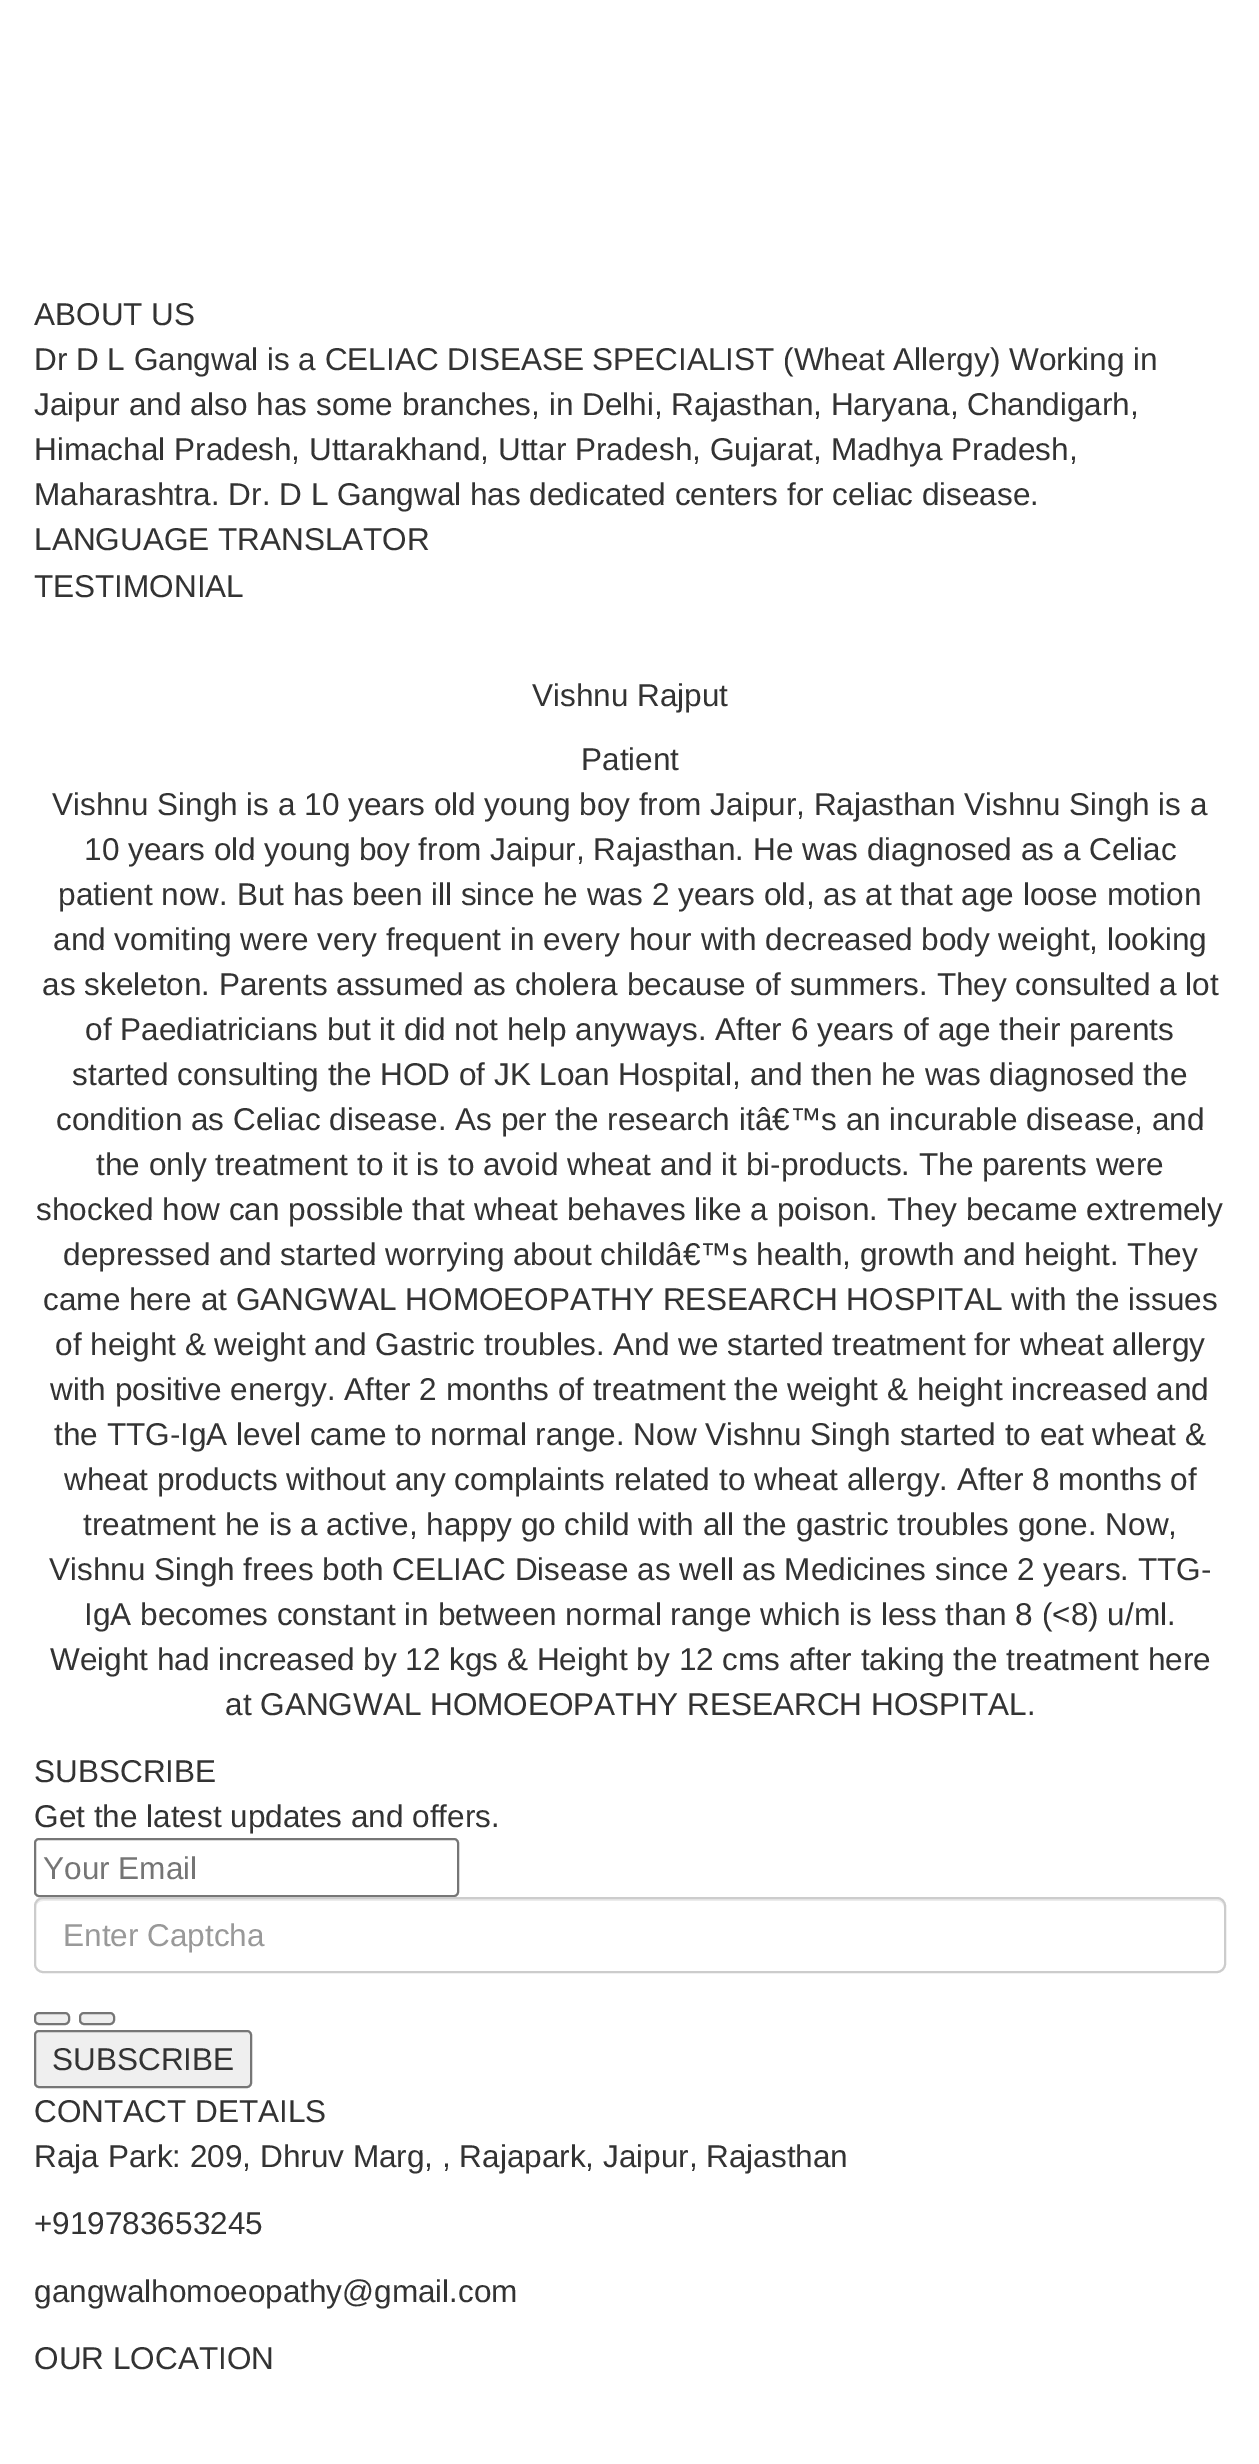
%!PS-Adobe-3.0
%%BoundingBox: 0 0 1259 2464
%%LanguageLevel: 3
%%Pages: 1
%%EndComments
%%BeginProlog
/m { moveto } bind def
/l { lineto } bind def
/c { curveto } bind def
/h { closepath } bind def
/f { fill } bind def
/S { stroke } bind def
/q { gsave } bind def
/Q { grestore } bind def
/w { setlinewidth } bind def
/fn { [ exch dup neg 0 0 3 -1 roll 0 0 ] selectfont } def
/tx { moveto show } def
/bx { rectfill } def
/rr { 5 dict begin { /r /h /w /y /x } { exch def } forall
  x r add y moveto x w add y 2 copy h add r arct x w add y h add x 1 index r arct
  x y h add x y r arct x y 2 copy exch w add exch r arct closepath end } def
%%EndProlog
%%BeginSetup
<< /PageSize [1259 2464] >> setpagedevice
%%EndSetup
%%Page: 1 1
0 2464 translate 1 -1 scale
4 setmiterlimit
1 setgray
0 0 1259 2464 bx
/LiberationSans-Regular 31.5 fn
0.2 setgray
(ABOUT US) 34 325 tx
(Dr D L Gangwal is a CELIAC DISEASE SPECIALIST \(Wheat Allergy\) Working in) 34 370 tx
(Jaipur and also has some branches, in Delhi, Rajasthan, Haryana, Chandigarh,) 34 415 tx
(Himachal Pradesh, Uttarakhand, Uttar Pradesh, Gujarat, Madhya Pradesh,) 34 460 tx
(Maharashtra. Dr. D L Gangwal has dedicated centers for celiac disease.) 34 505 tx
(LANGUAGE TRANSLATOR) 34 550 tx
(TESTIMONIAL) 34 597 tx
(Vishnu Rajput) 532 706 tx
(Patient) 581 770 tx
(Vishnu Singh is a 10 years old young boy from Jaipur, Rajasthan Vishnu Singh is a) 52 815 tx
(10 years old young boy from Jaipur, Rajasthan. He was diagnosed as a Celiac) 84 860 tx
(patient now. But has been ill since he was 2 years old, as at that age loose motion) 58 905 tx
(and vomiting were very frequent in every hour with decreased body weight, looking) 53 950 tx
(as skeleton. Parents assumed as cholera because of summers. They consulted a lot) 42 995 tx
(of Paediatricians but it did not help anyways. After 6 years of age their parents) 85 1040 tx
(started consulting the HOD of JK Loan Hospital, and then he was diagnosed the) 72 1085 tx
(condition as Celiac disease. As per the research itâ€™s an incurable disease, and) 56 1130 tx
(the only treatment to it is to avoid wheat and it bi-products. The parents were) 96 1175 tx
(shocked how can possible that wheat behaves like a poison. They became extremely) 36 1220 tx
(depressed and started worrying about childâ€™s health, growth and height. They) 63 1265 tx
(came here at GANGWAL HOMOEOPATHY RESEARCH HOSPITAL with the issues) 43 1310 tx
(of height & weight and Gastric troubles. And we started treatment for wheat allergy) 55 1355 tx
(with positive energy. After 2 months of treatment the weight & height increased and) 50 1400 tx
(the TTG-IgA level came to normal range. Now Vishnu Singh started to eat wheat &) 54 1445 tx
(wheat products without any complaints related to wheat allergy. After 8 months of) 64 1490 tx
(treatment he is a active, happy go child with all the gastric troubles gone. Now,) 83 1535 tx
(Vishnu Singh frees both CELIAC Disease as well as Medicines since 2 years. TTG-) 49 1580 tx
(IgA becomes constant in between normal range which is less than 8 \(<8\) u/ml.) 84 1625 tx
(Weight had increased by 12 kgs & Height by 12 cms after taking the treatment here) 50 1670 tx
(at GANGWAL HOMOEOPATHY RESEARCH HOSPITAL.) 225 1715 tx
(SUBSCRIBE) 34 1782 tx
(Get the latest updates and offers.) 34 1827 tx
0.463 setgray
2 w
35 1839 423 57 4 rr S
0.459 setgray
(Your Email) 43 1879 tx
0.925 setgray
43 1901 m 1217 1901 l 1221 1901 1224 1904 1224 1908 c 1224 1904 1222 1899 1217 1899 c 43 1899 l 38 1899 36 1904 36 1908 c 36 1904 39 1901 43 1901 c h f
0.8 setgray
35 1898 1190 74 8 rr S
0.6 setgray
(Enter Captcha) 63 1946 tx
0.937 setgray
35 2013 34 11 4 rr q f Q
0.463 setgray
S
0.937 setgray
80 2013 34 11 4 rr q f Q
0.463 setgray
S
0.937 setgray
35 2031 216 56 4 rr q f Q
0.463 setgray
S
0.2 setgray
(SUBSCRIBE) 52 2070 tx
(CONTACT DETAILS) 34 2122 tx
(Raja Park: 209, Dhruv Marg, , Rajapark, Jaipur, Rajasthan) 34 2167 tx
(+919783653245) 34 2234 tx
(gangwalhomoeopathy@gmail.com) 34 2302 tx
(OUR LOCATION) 34 2369 tx
showpage
%%EOF
